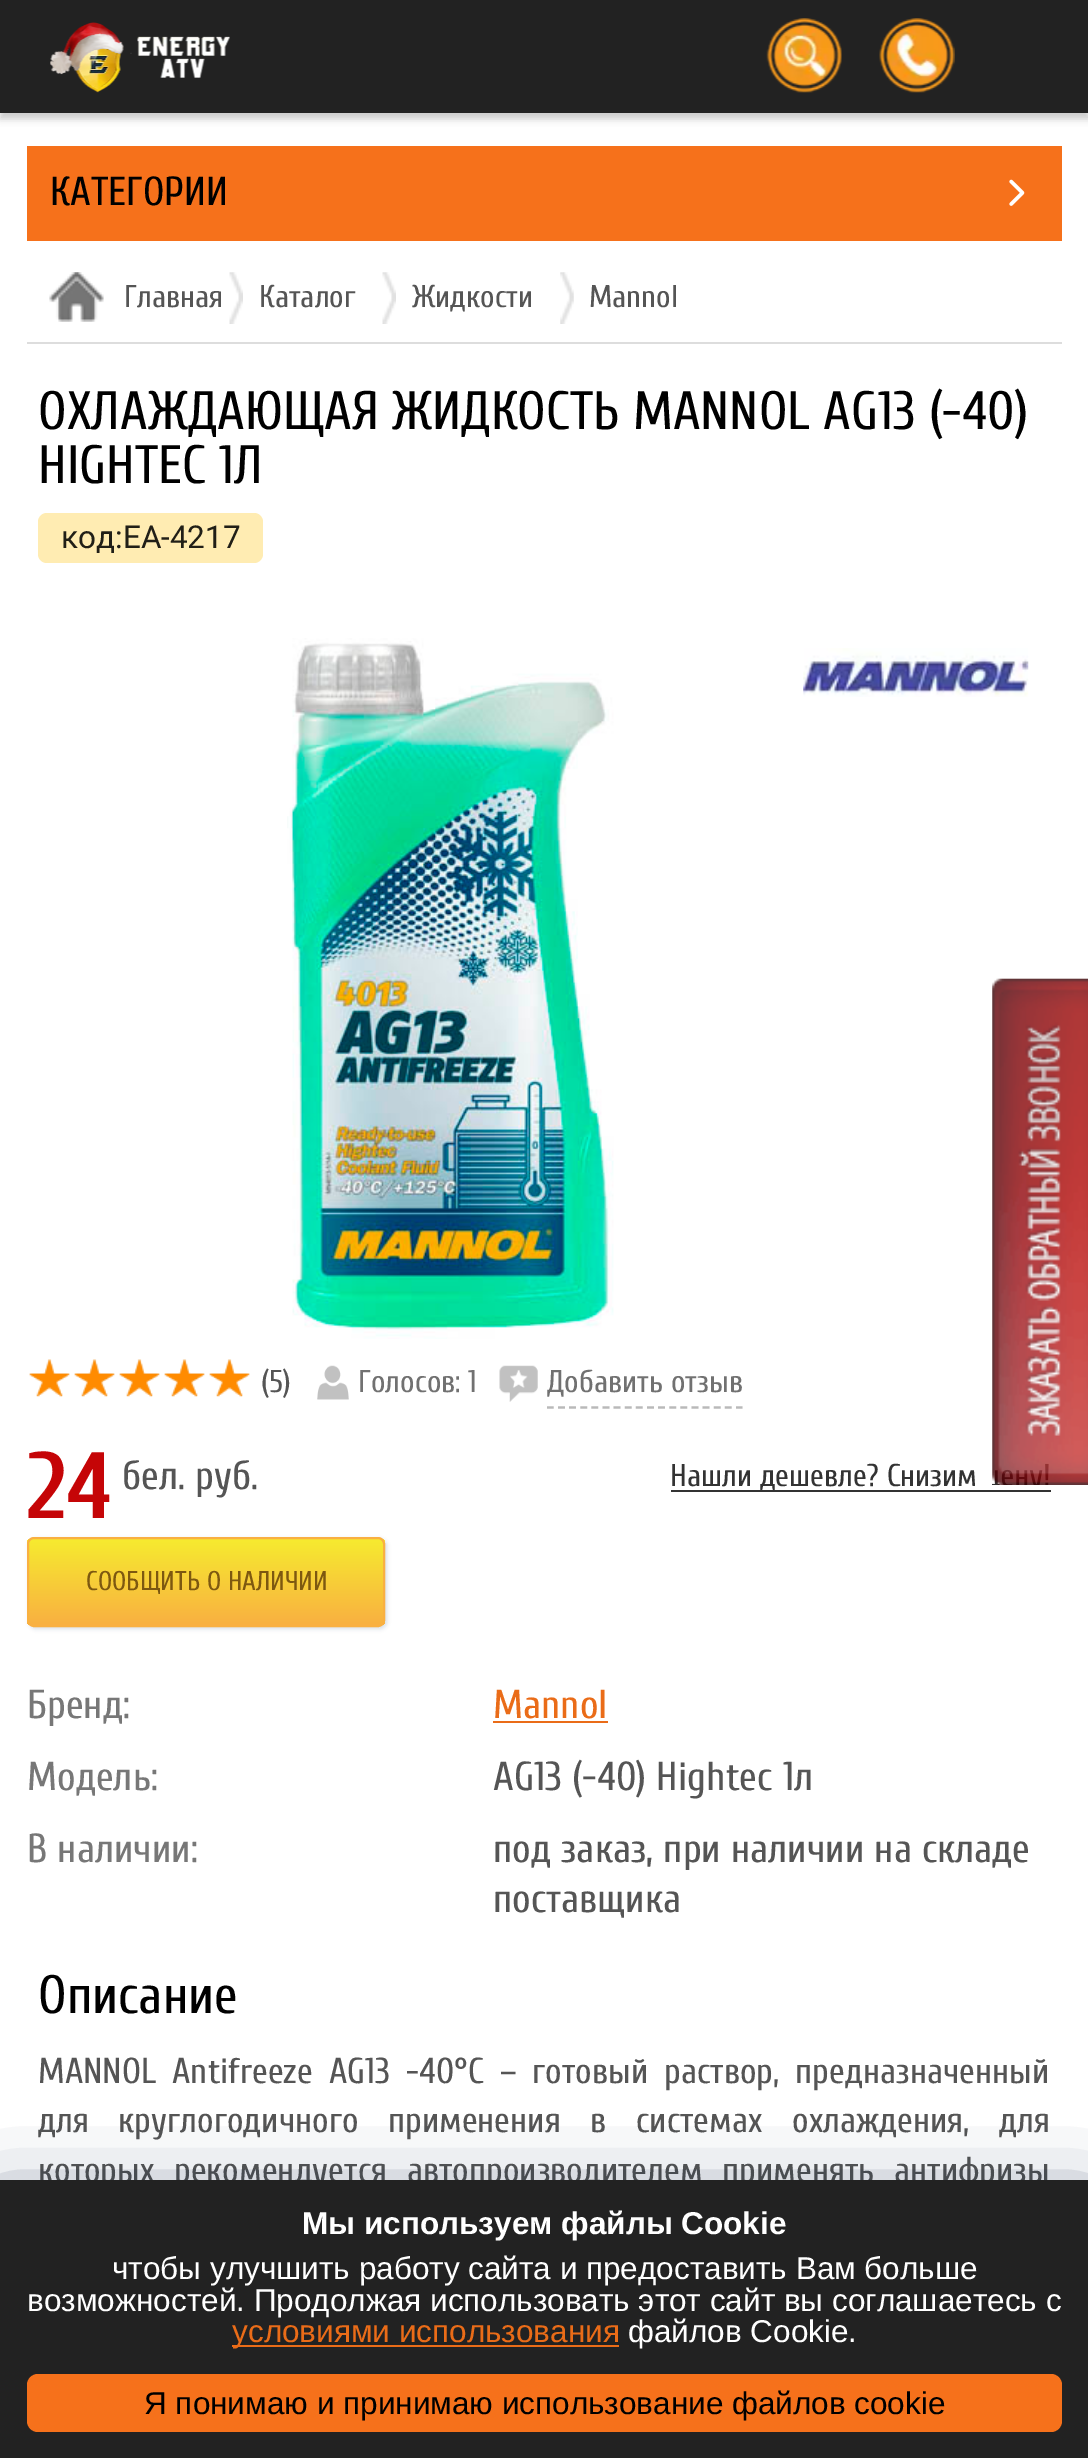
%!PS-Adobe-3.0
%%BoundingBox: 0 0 1088 2458
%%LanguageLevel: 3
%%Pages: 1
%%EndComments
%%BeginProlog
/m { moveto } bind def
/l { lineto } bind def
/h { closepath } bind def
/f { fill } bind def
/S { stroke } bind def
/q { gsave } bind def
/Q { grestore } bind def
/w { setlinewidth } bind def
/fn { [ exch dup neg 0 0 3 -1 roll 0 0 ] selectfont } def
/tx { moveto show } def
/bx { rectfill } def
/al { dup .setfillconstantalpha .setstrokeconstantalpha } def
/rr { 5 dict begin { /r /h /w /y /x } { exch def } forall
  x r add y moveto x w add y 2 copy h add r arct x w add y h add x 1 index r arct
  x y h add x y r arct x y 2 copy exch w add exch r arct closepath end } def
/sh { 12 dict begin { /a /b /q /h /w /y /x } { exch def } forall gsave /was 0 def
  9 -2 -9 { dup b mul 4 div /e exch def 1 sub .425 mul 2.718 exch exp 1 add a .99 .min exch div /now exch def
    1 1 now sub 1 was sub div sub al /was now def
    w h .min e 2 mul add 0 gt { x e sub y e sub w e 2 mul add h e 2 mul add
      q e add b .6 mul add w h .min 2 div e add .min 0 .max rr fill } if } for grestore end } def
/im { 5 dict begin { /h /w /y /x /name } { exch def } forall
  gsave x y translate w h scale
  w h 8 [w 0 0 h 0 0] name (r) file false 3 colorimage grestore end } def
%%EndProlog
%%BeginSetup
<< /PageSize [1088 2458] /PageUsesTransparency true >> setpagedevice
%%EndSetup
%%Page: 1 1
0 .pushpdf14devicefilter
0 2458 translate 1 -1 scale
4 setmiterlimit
1 setgray
0 0 1088 2458 bx
0 setgray
0 7 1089 112 0 3.5 0.2 sh
0.133 setgray
0 0 1088 113 bx
(image0.raw) 50 22 180 71 im
(image1.raw) 766 18 76 75 im
(image2.raw) 879 18 76 75 im
0.965 0.443 0.106 setrgbcolor
27 146 1035 95 bx
/Cuprum-Regular 40.5 fn
0 setgray
(КАТЕГОРИИ) 50 205 tx
(image3.raw) 1009 179 16 27 im
0.867 setgray
27 342 1035 2 bx
(image4.raw) 49 272 55 50 im
/Cuprum-Regular 31.5 fn
0.333 setgray
(Главная) 124 307 tx
(image5.raw) 229 272 14 52 im
(Каталог) 259 307 tx
(image6.raw) 382 272 14 52 im
(Жидкости) 412 307 tx
(image7.raw) 560 272 14 52 im
(Mannol) 589 307 tx
/Cuprum-Regular 54 fn
0 setgray
(ОХЛАЖДАЮЩАЯ ЖИДКОСТЬ MANNOL AG13 \(-40\)) 38 429 tx
(HIGHTEC 1Л) 38 483 tx
1 0.925 0.698 setrgbcolor
38 513 225 50 9 rr f
/Roboto-Regular 31.5 fn
0.129 0.122 0.09 setrgbcolor
(код:EA-4217) 61 548 tx
(image8.raw) 287 638 327 701 im
(image9.raw) 803 648 226 49 im
(image10.raw) 29 1359 221 38 im
(image11.raw) 29 1359 221 38 im
/Cuprum-Regular 31.5 fn
0.333 setgray
(\(5\)) 261 1392 tx
(image12.raw) 317 1365 32 35 im
0.443 setgray
(Голосов: 1) 358 1392 tx
(image13.raw) 499 1365 39 37 im
0.725 setgray
2.2 w
[6.75 4.37] 0 setdash
547 1407.5 m 742.5 1407.5 l S
0.443 setgray
(Добавить отзыв) 547 1392 tx
/Cuprum-Bold 94 fn
0.773 0.02 0.027 setrgbcolor
(24) 27 1518 tx
/Cuprum-Regular 40.5 fn
0.333 setgray
(бел. руб.) 122 1489 tx
0.051 0.18 0.357 setrgbcolor
29 1539 358 90 7 2 0.15 sh
q
27 1537 358 90 7 rr clip newpath
q 27 1539 m 385 1539 l 385 1625 l 27 1625 l h clip newpath
<< /ShadingType 2 /ColorSpace /DeviceRGB /Coords [206 1539 206 1625] /Extend [true true] /Function << /FunctionType 2 /Domain [0 1] /C0 [0.965 0.922 0.184] /C1 [0.976 0.69 0.255] /N 1 >> >> shfill Q
Q
0.976 0.69 0.255 setrgbcolor
2 w
[] 0 setdash
28 1538 356 88 6 rr S
/Cuprum-Regular 27 fn
0.49 0.345 0.063 setrgbcolor
(СООБЩИТЬ О НАЛИЧИИ) 86 1590 tx
0.2 setgray
671 1490 380 2 bx
/Cuprum-Regular 31.5 fn
(Нашли дешевле? Снизим) 670 1486 tx
/Cuprum-Regular 40.5 fn
0.467 setgray
(Бренд:) 27 1718 tx
0.918 0.424 0.094 setrgbcolor
(Mannol) 493 1718 tx
493 1721 115 2 bx
0.467 setgray
(Модель:) 27 1790 tx
0.333 setgray
(AG13 \(-40\) Hightec 1л) 493 1790 tx
0.467 setgray
(В наличии:) 27 1862 tx
0.333 setgray
(под заказ, при наличии на складе) 493 1862 tx
(поставщика) 493 1912 tx
/Cuprum-Regular 54 fn
0 setgray
(Описание) 38 2013 tx
/Cuprum-Regular 36 fn
0.333 setgray
38 2083 m 7 0 32 (MANNOL Antifreeze AG13 -40°C – готовый раствор, предназначенный) widthshow
38 2132 m 20.5 0 32 (для круглогодичного применения в системах охлаждения, для) widthshow
38 2182 m 10.5 0 32 (которых рекомендуется автопроизводителем применять антифризы) widthshow
(image14.raw) 992 978 96 507 im
0 0.078 0.235 setrgbcolor
0 2223 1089 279 0 43 1 sh
0.133 setgray
0 2180 1088 278 bx
/LiberationSans-Bold 31.5 fn
1 setgray
(Мы используем файлы Cookie) 302 2234 tx
/LiberationSans-Regular 31.5 fn
(чтобы улучшить работу сайта и предоставить Вам больше) 112 2279 tx
(возможностей. Продолжая использовать этот сайт вы соглашаетесь с) 27 2311 tx
0.918 0.424 0.094 setrgbcolor
232 2345 387 2 bx
(условиями использования) 232 2342 tx
1 setgray
(файлов Cookie.) 628 2342 tx
0.965 0.443 0.106 setrgbcolor
27 2374 1035 58 11 rr f
0 setgray
(Я понимаю и принимаю использование файлов cookie) 144 2414 tx
.poppdf14devicefilter showpage
%%EOF
